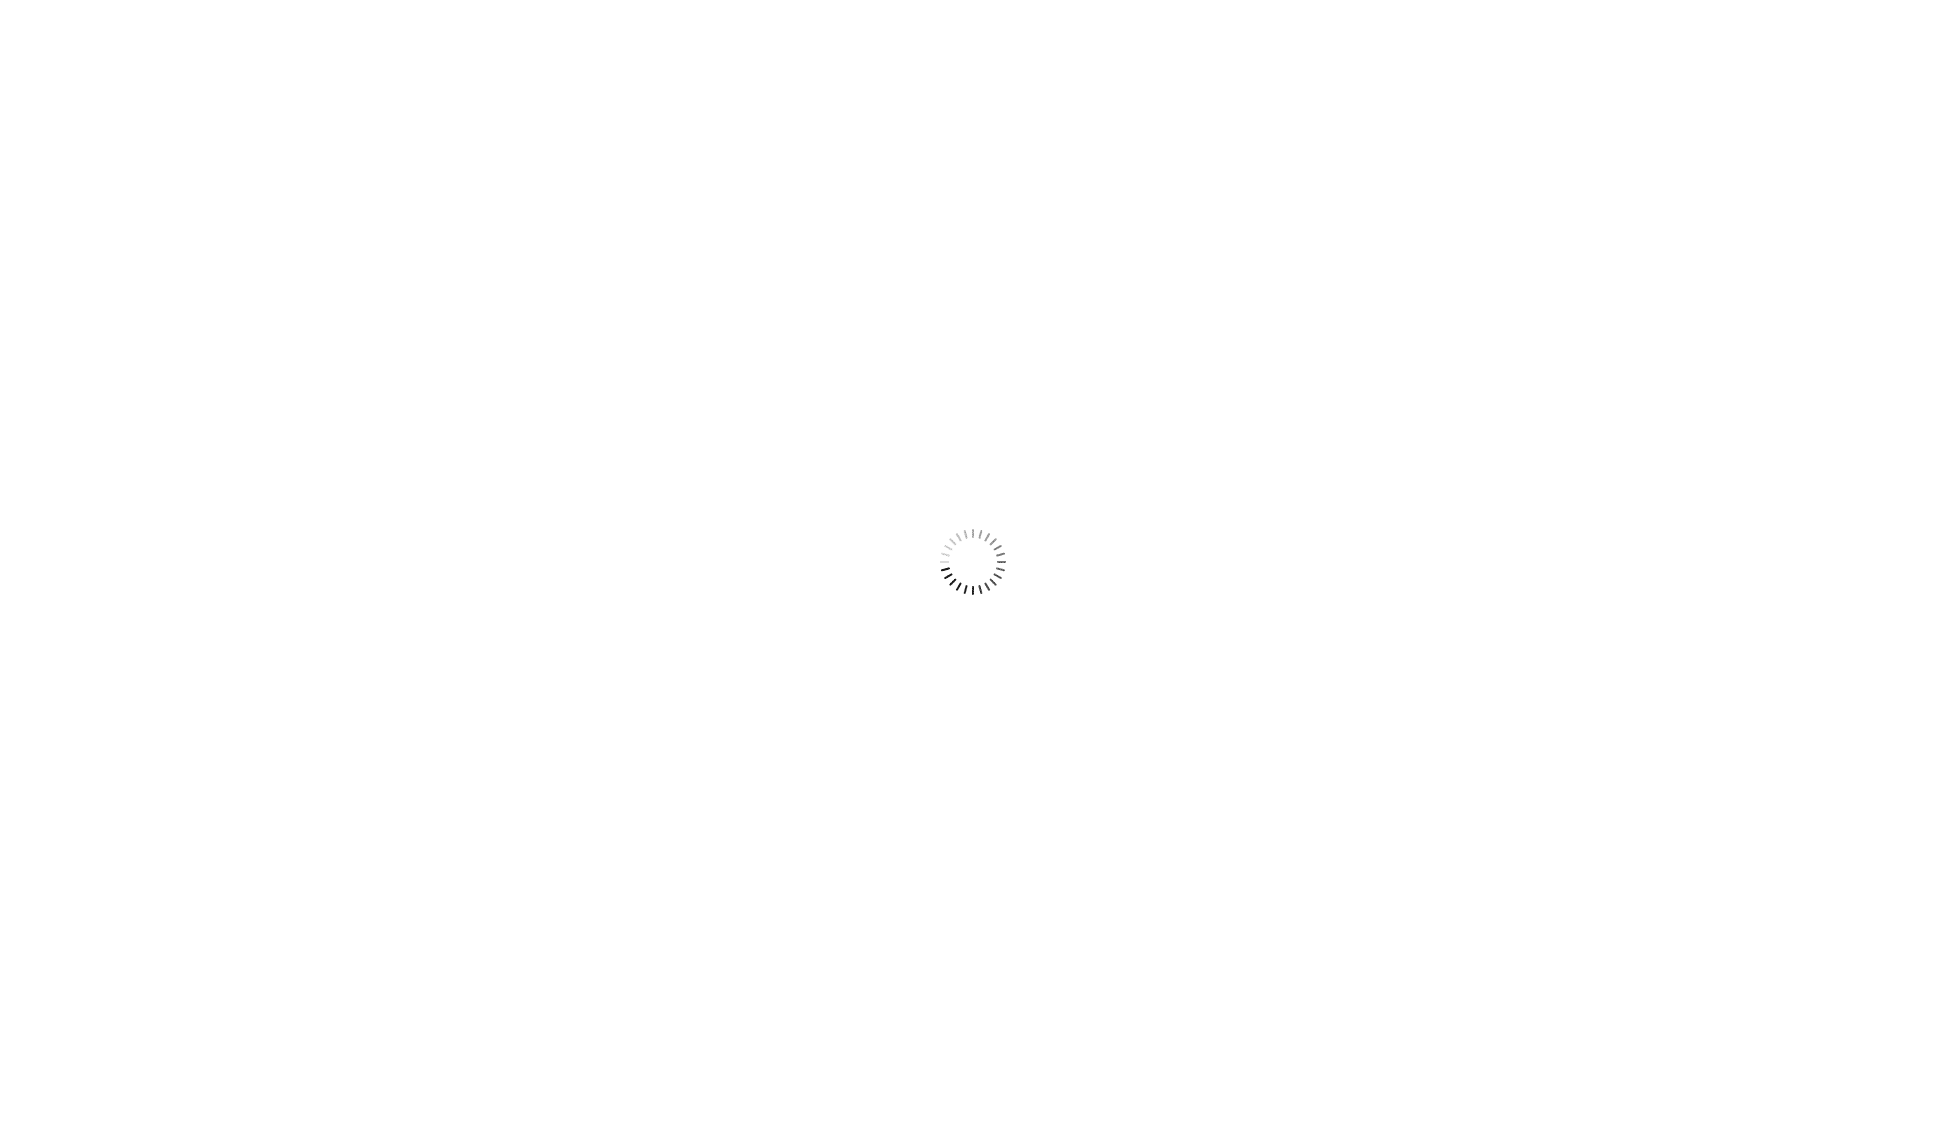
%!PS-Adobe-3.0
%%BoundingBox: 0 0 1945 1124
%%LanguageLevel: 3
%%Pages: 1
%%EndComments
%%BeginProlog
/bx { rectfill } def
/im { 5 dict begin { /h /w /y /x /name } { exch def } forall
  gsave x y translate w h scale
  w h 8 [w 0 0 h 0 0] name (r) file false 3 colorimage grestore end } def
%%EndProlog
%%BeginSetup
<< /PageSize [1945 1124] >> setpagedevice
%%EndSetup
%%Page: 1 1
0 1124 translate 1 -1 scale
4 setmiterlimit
1 setgray
0 0 1945 1124 bx
(image0.raw) 940 529 66 66 im
showpage
%%EOF
